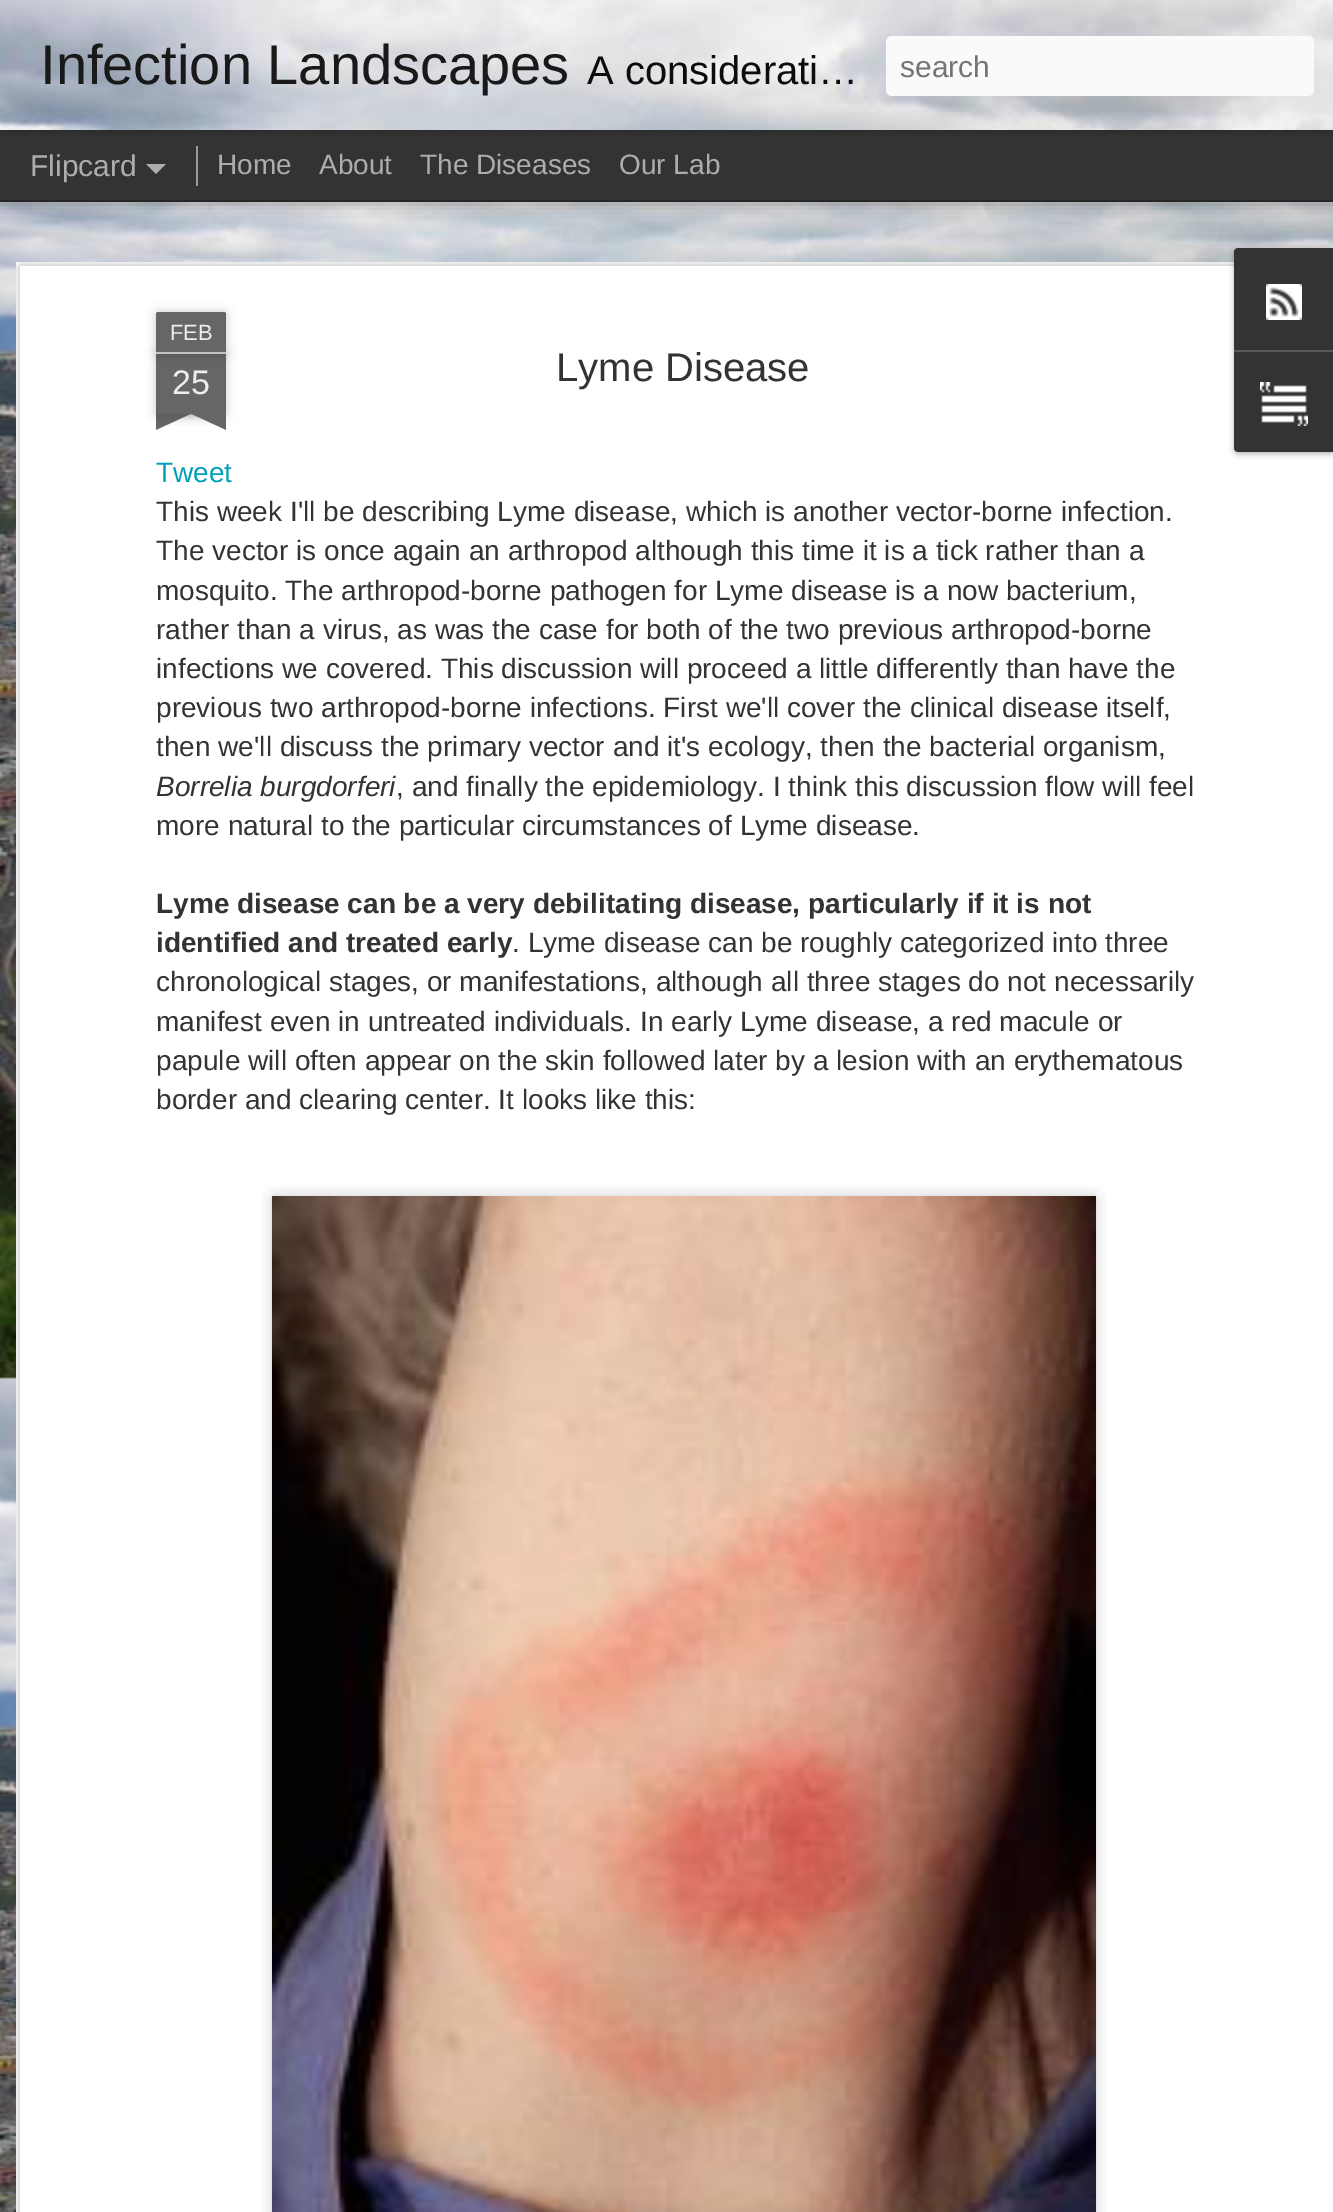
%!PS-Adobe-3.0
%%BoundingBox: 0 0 1333 2212
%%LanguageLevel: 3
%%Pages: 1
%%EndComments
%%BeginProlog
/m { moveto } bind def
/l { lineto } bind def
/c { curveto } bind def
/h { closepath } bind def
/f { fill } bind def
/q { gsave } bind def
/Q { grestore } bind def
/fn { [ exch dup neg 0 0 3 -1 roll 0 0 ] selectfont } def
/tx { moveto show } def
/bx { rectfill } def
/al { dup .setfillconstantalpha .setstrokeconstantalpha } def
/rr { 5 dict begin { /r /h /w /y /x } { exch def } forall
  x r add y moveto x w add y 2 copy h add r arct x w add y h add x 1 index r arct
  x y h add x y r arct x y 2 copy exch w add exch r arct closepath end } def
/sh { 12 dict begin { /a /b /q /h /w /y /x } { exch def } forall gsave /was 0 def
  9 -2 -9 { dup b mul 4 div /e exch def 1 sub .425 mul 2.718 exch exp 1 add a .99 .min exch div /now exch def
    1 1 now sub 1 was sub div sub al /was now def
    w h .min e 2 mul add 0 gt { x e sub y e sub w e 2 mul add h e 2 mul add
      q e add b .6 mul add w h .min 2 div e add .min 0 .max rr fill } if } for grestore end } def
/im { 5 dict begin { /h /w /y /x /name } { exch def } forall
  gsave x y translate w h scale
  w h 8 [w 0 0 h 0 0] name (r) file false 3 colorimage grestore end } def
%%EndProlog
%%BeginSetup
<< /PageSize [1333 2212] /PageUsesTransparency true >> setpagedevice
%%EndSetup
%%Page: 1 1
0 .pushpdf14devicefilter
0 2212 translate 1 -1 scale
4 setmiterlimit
0.2 setgray
0 0 1333 2212 bx
(image1.raw) 0 202 1333 2010 im
0 setgray
0 130 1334 70 0 8 0.5 sh
0.2 setgray
0 130 1333 70 bx
0 setgray
0 0 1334 130 0 5 0.3 sh
(image0.raw) 0 0 1333 130 im
/LiberationSans-Regular 56 fn
0.098 setgray
(Infection Landscapes) 40 84 tx
/LiberationSans-Regular 40 fn
0.047 setgray
(A considerati…) 587 84 tx
0.98 setgray
886 36 428 60 6 rr f
/LiberationSans-Regular 30 fn
0.459 setgray
(search) 900 77 tx
0.678 setgray
(Flipcard) 30 176 tx
146 164 m 166 164 l 156 174 l h f
0.6 setgray
196 146 2 40 bx
/LiberationSans-Regular 28 fn
0.678 setgray
(Home) 217 174 tx
(About) 319 174 tx
(The Diseases) 420 174 tx
(Our Lab) 619 174 tx
1 setgray
16 262 1317 1950 bx
(image2.raw) 16 262 1218 1950 im
0 setgray
156 354 70 60 0 5 0.2 sh
0.4 setgray
156 354 70 60 bx
0 setgray
156 312 70 42 2 5 0.2 sh
0.4 setgray
158 312 m 224 312 l 225 312 226 313 226 314 c 226 354 l 156 354 l 156 314 l 156 313 157 312 158 312 c h f
0.761 setgray
156 352 70 2 bx
/LiberationSans-Regular 22 fn
0.933 setgray
(FEB) 170 340 tx
/LiberationSans-Regular 34 fn
(25) 172 394 tx
q
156 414 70 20 rectclip
0 setgray
138 394 100 20 0 5 0.2 sh
Q
q
156 414 70 20 rectclip
0.4 setgray
138 416 m 229 374 l 238 392 l 147 434 l h f
Q
q
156 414 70 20 rectclip
0 setgray
144 394 100 20 0 5 0.2 sh
Q
q
156 414 70 20 rectclip
0.4 setgray
153 374 m 244 416 l 235 434 l 144 392 l h f
Q
/LiberationSans-Regular 40 fn
0.2 setgray
(Lyme Disease) 556 381 tx
/LiberationSans-Regular 28 fn
0 0.62 0.722 setrgbcolor
(Tweet) 156 482 tx
0.2 setgray
(This week I'll be describing Lyme disease, which is another vector-borne infection.) 156 521 tx
(The vector is once again an arthropod although this time it is a tick rather than a) 156 560 tx
(mosquito. The arthropod-borne pathogen for Lyme disease is a now bacterium,) 156 600 tx
(rather than a virus, as was the case for both of the two previous arthropod-borne) 156 639 tx
(infections we covered. This discussion will proceed a little differently than have the) 156 678 tx
(previous two arthropod-borne infections. First we'll cover the clinical disease itself,) 156 717 tx
(then we'll discuss the primary vector and it's ecology, then the bacterial organism,) 156 756 tx
/LiberationSans-Italic 28 fn
(Borrelia burgdorferi) 156 796 tx
/LiberationSans-Regular 28 fn
(, and finally the epidemiology. I think this discussion flow will feel) 396 796 tx
(more natural to the particular circumstances of Lyme disease.) 156 835 tx
/LiberationSans-Bold 28 fn
(Lyme disease can be a very debilitating disease, particularly if it is not) 156 913 tx
(identified and treated early) 156 952 tx
/LiberationSans-Regular 28 fn
(. Lyme disease can be roughly categorized into three) 512 952 tx
(chronological stages, or manifestations, although all three stages do not necessarily) 156 991 tx
(manifest even in untreated individuals. In early Lyme disease, a red macule or) 156 1031 tx
(papule will often appear on the skin followed later by a lesion with an erythematous) 156 1070 tx
(border and clearing center. It looks like this:) 156 1109 tx
(image3.raw) 262 1186 844 1026 im
0 setgray
1234 250 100 204 4 3 0.3 sh
0.2 setgray
1238 248 m 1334 248 l 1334 350 l 1234 350 l 1234 252 l 1234 250 1236 248 1238 248 c h f
(image4.raw) 1266 284 36 36 im
1234 350 m 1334 350 l 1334 452 l 1238 452 l 1236 452 1234 450 1234 448 c h f
0.345 setgray
1234 350 99 2 bx
(image5.raw) 1260 382 48 44 im
.poppdf14devicefilter showpage
%%EOF
